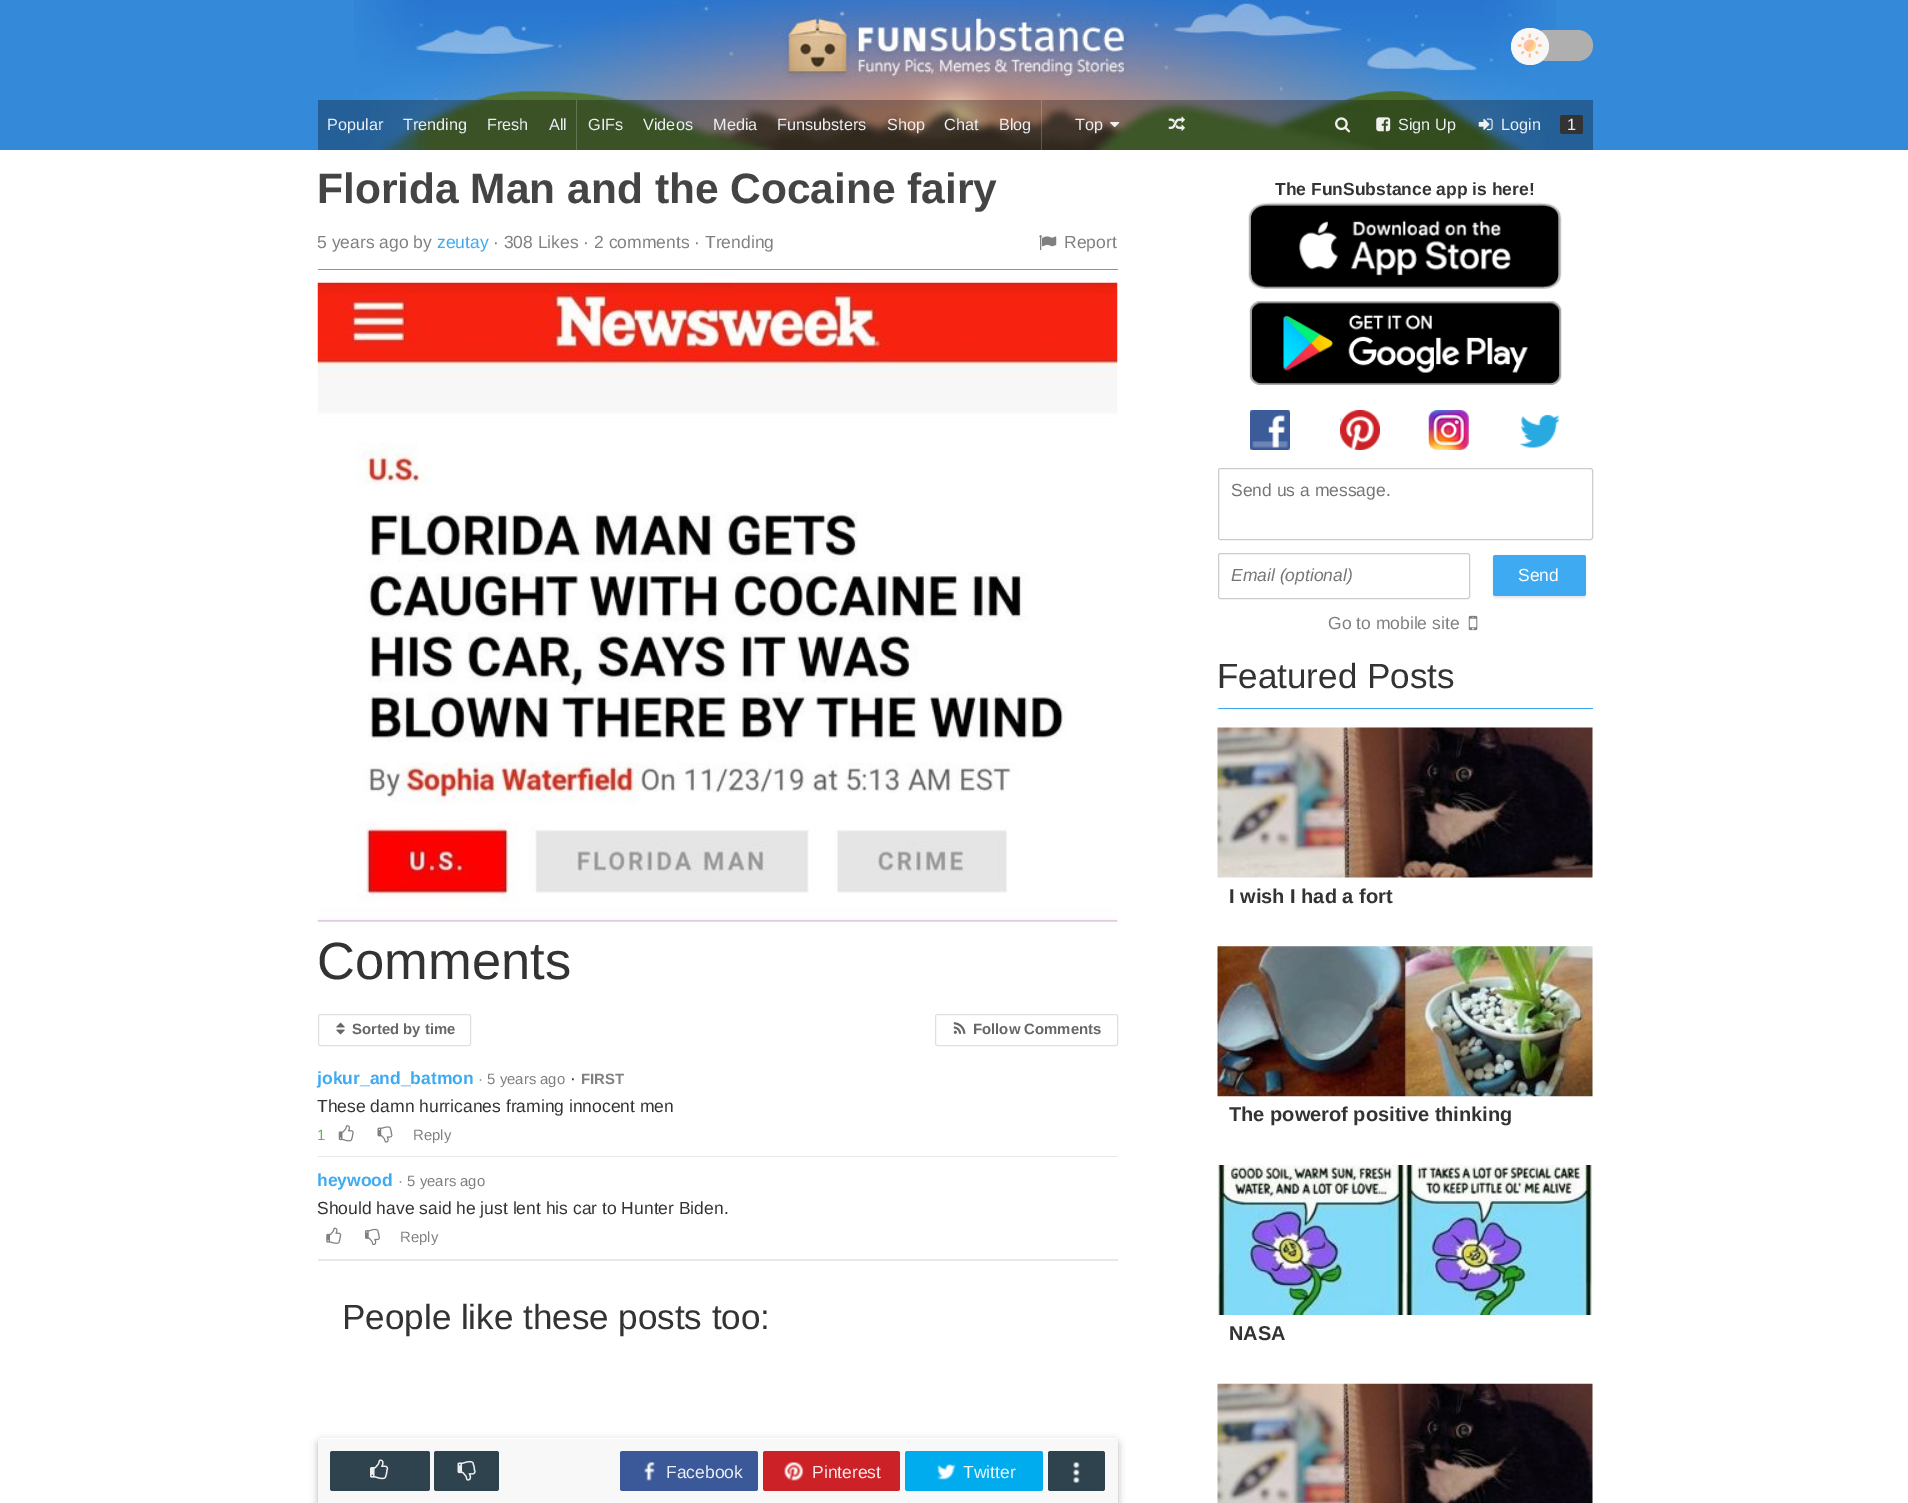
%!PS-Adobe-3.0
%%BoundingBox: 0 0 1908 1503
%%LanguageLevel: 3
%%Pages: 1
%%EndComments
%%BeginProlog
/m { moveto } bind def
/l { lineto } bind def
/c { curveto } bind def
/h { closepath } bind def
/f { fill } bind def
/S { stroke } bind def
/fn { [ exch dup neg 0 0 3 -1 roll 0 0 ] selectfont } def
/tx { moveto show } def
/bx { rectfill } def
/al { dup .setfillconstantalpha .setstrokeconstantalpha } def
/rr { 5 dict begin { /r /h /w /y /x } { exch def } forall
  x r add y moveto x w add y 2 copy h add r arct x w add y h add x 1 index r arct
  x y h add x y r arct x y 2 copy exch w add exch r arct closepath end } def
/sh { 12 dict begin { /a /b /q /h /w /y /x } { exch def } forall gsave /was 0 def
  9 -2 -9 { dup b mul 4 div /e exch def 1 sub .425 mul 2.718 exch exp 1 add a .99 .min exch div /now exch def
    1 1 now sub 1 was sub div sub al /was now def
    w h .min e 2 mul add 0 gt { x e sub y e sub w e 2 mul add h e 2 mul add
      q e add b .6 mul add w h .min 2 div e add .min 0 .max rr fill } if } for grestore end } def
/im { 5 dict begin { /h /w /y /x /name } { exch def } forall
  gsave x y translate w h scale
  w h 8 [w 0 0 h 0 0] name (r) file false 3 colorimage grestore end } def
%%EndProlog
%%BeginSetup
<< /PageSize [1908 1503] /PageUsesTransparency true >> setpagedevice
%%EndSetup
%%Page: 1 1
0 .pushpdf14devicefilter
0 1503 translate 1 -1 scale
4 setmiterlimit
1 setgray
0 0 1908 1503 bx
0.204 0.537 0.851 setrgbcolor
0 0 1908 150 bx
(image0.raw) 354 0 1202 150 im
0.686 setgray
1530 30 63 31 15.5 rr f
0.969 setgray
1511 28 38 37 18.5 rr f
(image1.raw) 1517 33 26 25 im
0.3 al
0 setgray
318 100 1275 50 bx
/LiberationSans-Regular 16.25 fn
1 al
0.922 0.933 0.961 setrgbcolor
(Popular) 327 130 tx
(Trending) 403 130 tx
(Fresh) 487 130 tx
(All) 549 130 tx
0.38 0.459 0.318 setrgbcolor
576 100 1 50 bx
0.922 0.933 0.961 setrgbcolor
(GIFs) 588 130 tx
(Videos) 643 130 tx
(Media) 713 130 tx
(Funsubsters) 777 130 tx
(Shop) 887 130 tx
(Chat) 944 130 tx
(Blog) 999 130 tx
0.2 al
1 setgray
1041 100 1 50 bx
1 al
0.922 0.933 0.961 setrgbcolor
(Top) 1075 130 tx
(image2.raw) 1110 122 10 6 im
(image3.raw) 1168 116 17 15 im
(image4.raw) 1335 117 16 16 im
(image5.raw) 1376 117 15 15 im
(Sign Up) 1398 130 tx
(image6.raw) 1478 118 15 13 im
(Login) 1501 130 tx
0.2 setgray
1560 115 23 19 2.5 rr f
0.922 0.933 0.961 setrgbcolor
(1) 1567 130 tx
0.91 setgray
318 1259 800 2 bx
0.239 0.667 0.949 setrgbcolor
318 269 800 1 bx
/LiberationSans-Bold 42.5 fn
0.267 setgray
(Florida Man and the Cocaine fairy) 317 203 tx
/LiberationSans-Regular 17.5 fn
0.502 setgray
(5 years ago by) 317 248 tx
0.239 0.667 0.949 setrgbcolor
(zeutay) 437 248 tx
0.502 setgray
(· 308 Likes · 2 comments · Trending) 493 248 tx
(image7.raw) 1039 235 18 16 im
(Report) 1064 248 tx
(image8.raw) 317 282 801 640 im
/LiberationSans-Regular 52.5 fn
0.2 setgray
(Comments) 317 979 tx
0.878 setgray
318.5 1014.5 152 31 2 rr S
(image9.raw) 336 1022 9 13 im
/LiberationSans-Bold 14.9 fn
0.4 setgray
(Sorted by time) 352 1034 tx
0.878 setgray
935.5 1014.5 182 31 2 rr S
(image10.raw) 953 1022 13 12 im
0.4 setgray
(Follow Comments) 973 1034 tx
0.91 setgray
318 1156 800 1 bx
/LiberationSans-Bold 17.5 fn
0.239 0.667 0.949 setrgbcolor
(jokur_and_batmon) 317 1084 tx
/LiberationSans-Regular 14.9 fn
0.502 setgray
(· 5 years ago) 478 1084 tx
/LiberationSans-Regular 17.5 fn
0.2 setgray
(·) 570 1084 tx
/LiberationSans-Bold 14.9 fn
0.502 setgray
(FIRST) 581 1084 tx
/LiberationSans-Regular 17.5 fn
0.2 setgray
(These damn hurricanes framing innocent men) 317 1112 tx
/LiberationSans-Regular 14.9 fn
0.38 0.702 0.294 setrgbcolor
(1) 317 1140 tx
(image11.raw) 338 1125 16 17 im
(image12.raw) 377 1126 16 17 im
0.502 setgray
(Reply) 413 1140 tx
/LiberationSans-Bold 17.5 fn
0.239 0.667 0.949 setrgbcolor
(heywood) 317 1186 tx
/LiberationSans-Regular 14.9 fn
0.502 setgray
(· 5 years ago) 398 1186 tx
/LiberationSans-Regular 17.5 fn
0.2 setgray
(Should have said he just lent his car to Hunter Biden.) 317 1214 tx
(image13.raw) 326 1227 16 17 im
(image14.raw) 365 1228 15 18 im
/LiberationSans-Regular 14.9 fn
0.502 setgray
(Reply) 400 1242 tx
0 setgray
318 1441 800 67 4 4 0.3 sh
0.973 setgray
322 1438 m 1114 1438 l 1116 1438 1118 1440 1118 1442 c 1118 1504 l 318 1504 l 318 1442 l 318 1440 320 1438 322 1438 c h f
1 setgray
320 1438 796 1 bx
0.184 0.263 0.31 setrgbcolor
330 1451 100 40 2.5 rr f
(image15.raw) 370 1459 19 21 im
434 1451 65 40 2.5 rr f
(image16.raw) 457 1460 19 21 im
0.231 0.349 0.596 setrgbcolor
620 1451 138 40 2.5 rr f
(image17.raw) 644 1462 11 19 im
/LiberationSans-Regular 17.5 fn
0.922 0.933 0.961 setrgbcolor
(Facebook) 666 1478 tx
0.8 0.129 0.153 setrgbcolor
763 1451 137 40 2.5 rr f
(image18.raw) 784 1462 20 19 im
0.98 0.914 0.914 setrgbcolor
(Pinterest) 812 1478 tx
0 0.675 0.929 setrgbcolor
905 1451 138 40 2.5 rr f
(image19.raw) 937 1464 19 16 im
0.902 0.969 0.992 setrgbcolor
(Twitter) 963 1478 tx
0.184 0.263 0.31 setrgbcolor
1048 1451 57 40 2.5 rr f
(image20.raw) 1073 1462 7 21 im
/LiberationSans-Regular 35 fn
0.2 setgray
(People like these posts too:) 342 1329 tx
/LiberationSans-Bold 17.5 fn
(The FunSubstance app is here!) 1275 195 tx
(image21.raw) 1248 202 314 87 im
(image22.raw) 1249 301 313 84 im
(image23.raw) 1250 410 40 40 im
(image24.raw) 1340 410 40 40 im
(image25.raw) 1428 410 41 40 im
(image26.raw) 1520 414 39 34 im
0.8 setgray
1218.5 468.5 374 71 2 rr S
/LiberationSans-Regular 17.5 fn
0.459 setgray
(Send us a message.) 1231 496 tx
0.8 setgray
1218.5 553.5 251 45 2 rr S
/LiberationSans-Italic 17.5 fn
0.459 setgray
(Email \(optional\)) 1231 581 tx
0 setgray
1493 556 93 42 2.5 1 0.1 sh
0.239 0.667 0.949 setrgbcolor
1493 555 93 41 2.5 rr f
/LiberationSans-Regular 17.5 fn
1 setgray
(Send) 1518 581 tx
0.502 setgray
(Go to mobile site) 1328 629 tx
(image27.raw) 1468 615 10 16 im
/LiberationSans-Regular 35 fn
0.2 setgray
(Featured Posts) 1217 688 tx
0.239 0.667 0.949 setrgbcolor
1218 708 375 1 bx
(image28.raw) 1217 727 376 151 im
/LiberationSans-Bold 20 fn
0.2 setgray
(I wish I had a fort) 1229 903 tx
(image29.raw) 1217 946 376 151 im
(The powerof positive thinking) 1229 1121 tx
(image30.raw) 1217 1165 376 150 im
(NASA) 1229 1340 tx
(image31.raw) 1217 1383 376 120 im
.poppdf14devicefilter showpage
%%EOF
